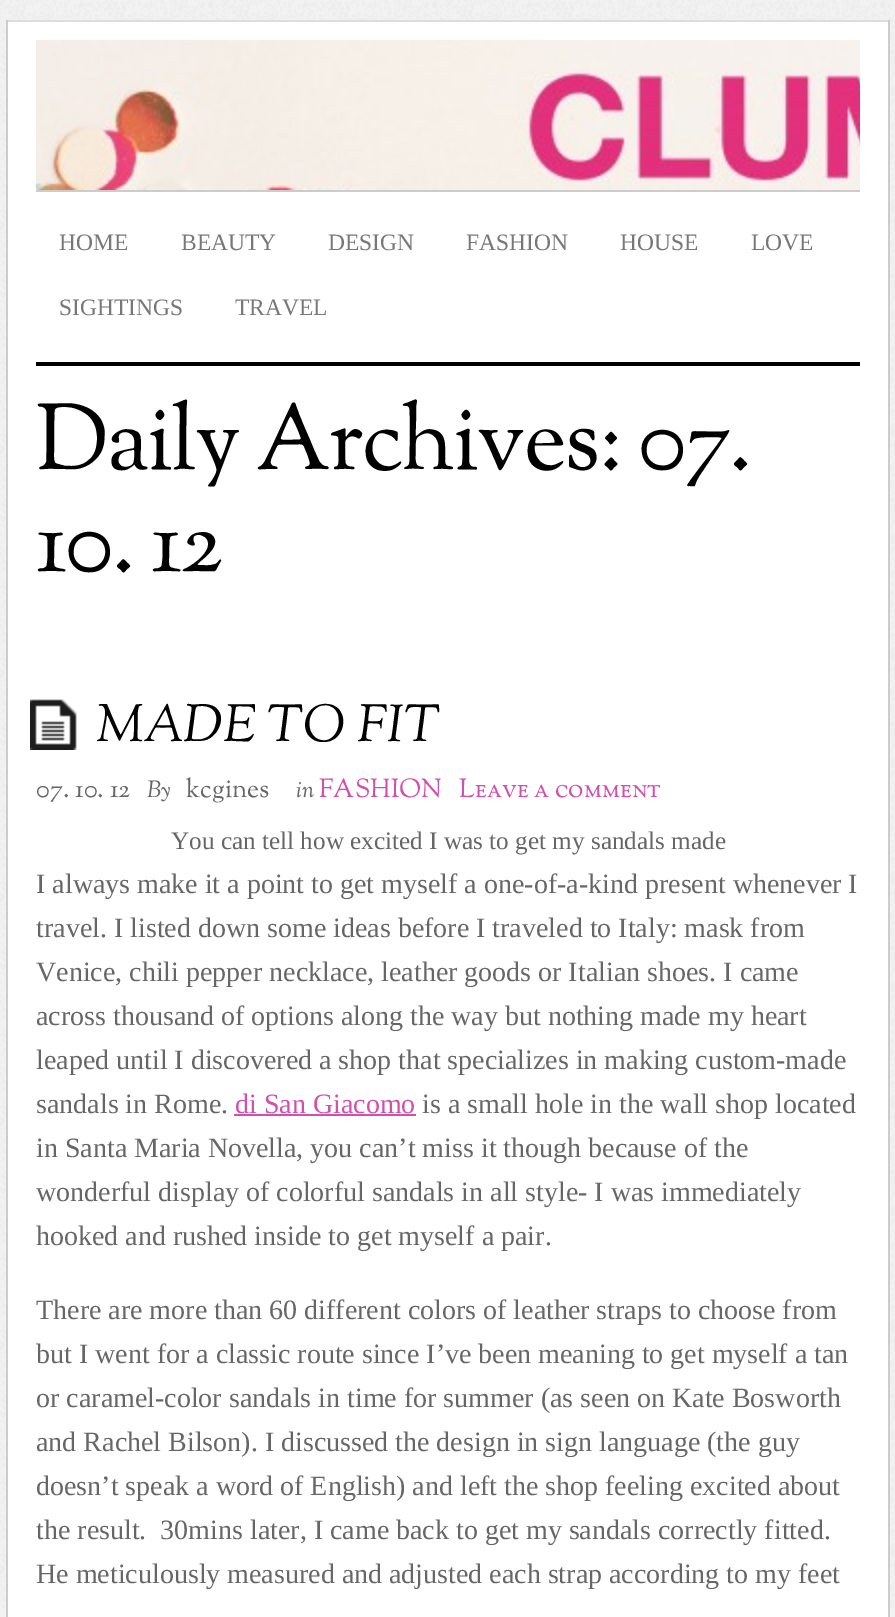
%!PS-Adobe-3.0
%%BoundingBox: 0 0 895 1617
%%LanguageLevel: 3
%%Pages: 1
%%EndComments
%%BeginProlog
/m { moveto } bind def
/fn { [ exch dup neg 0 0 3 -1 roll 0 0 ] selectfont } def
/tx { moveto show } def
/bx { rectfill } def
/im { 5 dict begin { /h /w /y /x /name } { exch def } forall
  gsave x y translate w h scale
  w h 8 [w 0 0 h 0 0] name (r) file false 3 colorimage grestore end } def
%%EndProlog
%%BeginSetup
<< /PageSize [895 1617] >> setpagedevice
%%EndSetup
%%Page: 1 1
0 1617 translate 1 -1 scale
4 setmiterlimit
0.957 0.953 0.953 setrgbcolor
0 0 895 1617 bx
(image0.raw) 0 0 895 1608 im
1 setgray
8 22 880 1595 bx
0.867 setgray
6 20 884 2 bx
0.8 setgray
888 20 2 1597 bx
6 20 2 1597 bx
0 setgray
36 362 824 4 bx
(image1.raw) 36 40 824 150 im
0.8 setgray
36 190 824 2 bx
/LiberationSerif-Regular 23.5 fn
0.467 setgray
(HOME) 59 250 tx
(BEAUTY) 181 250 tx
(DESIGN) 328 250 tx
(FASHION) 466 250 tx
(HOUSE) 620 250 tx
(LOVE) 751 250 tx
(SIGHTINGS) 59 315 tx
(TRAVEL) 235 315 tx
/SortsMillGoudy-Regular 92 fn
0 setgray
36 469 m -2 0 (Daily Archives: 07.) ashow
36 571 m -2 0 (10. 12) ashow
(image2.raw) 30 699 47 51 im
/SortsMillGoudy-Italic 52 fn
(MADE TO FIT) 96 741 tx
/SortsMillGoudy-Regular 26 fn
0.4 setgray
(07. 10. 12) 36 797 tx
/SortsMillGoudy-Italic 23.5 fn
(By) 147 797 tx
/SortsMillGoudy-Regular 26 fn
(kcgines) 186 797 tx
/SortsMillGoudy-Italic 23.5 fn
(in) 296 797 tx
/SortsMillGoudy-Regular 26 fn
0.831 0.306 0.686 setrgbcolor
(FASHION) 319 797 tx
/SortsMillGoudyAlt-Regular 26 fn
(Leave a comment) 459 797 tx
/LiberationSerif-Regular 25.2 fn
0.4 setgray
(You can tell how excited I was to get my sandals made) 171 849 tx
/LiberationSerif-Regular 28 fn
(I always make it a point to get myself a one-of-a-kind present whenever I) 36 893 tx
(travel. I listed down some ideas before I traveled to Italy: mask from) 36 937 tx
(Venice, chili pepper necklace, leather goods or Italian shoes. I came) 36 981 tx
(across thousand of options along the way but nothing made my heart) 36 1025 tx
(leaped until I discovered a shop that specializes in making custom-made) 36 1069 tx
(sandals in Rome.) 36 1113 tx
0.831 0.306 0.686 setrgbcolor
(di San Giacomo) 235 1113 tx
234 1114 182 2 bx
0.4 setgray
(is a small hole in the wall shop located) 422 1113 tx
(in Santa Maria Novella, you can’t miss it though because of the) 36 1157 tx
(wonderful display of colorful sandals in all style- I was immediately) 36 1201 tx
(hooked and rushed inside to get myself a pair.) 36 1245 tx
(There are more than 60 different colors of leather straps to choose from) 36 1319 tx
(but I went for a classic route since I’ve been meaning to get myself a tan) 36 1363 tx
(or caramel-color sandals in time for summer \(as seen on Kate Bosworth) 36 1407 tx
(and Rachel Bilson\). I discussed the design in sign language \(the guy) 36 1451 tx
(doesn’t speak a word of English\) and left the shop feeling excited about) 36 1495 tx
(the result.  30mins later, I came back to get my sandals correctly fitted.) 36 1539 tx
(He meticulously measured and adjusted each strap according to my feet) 36 1583 tx
showpage
%%EOF
